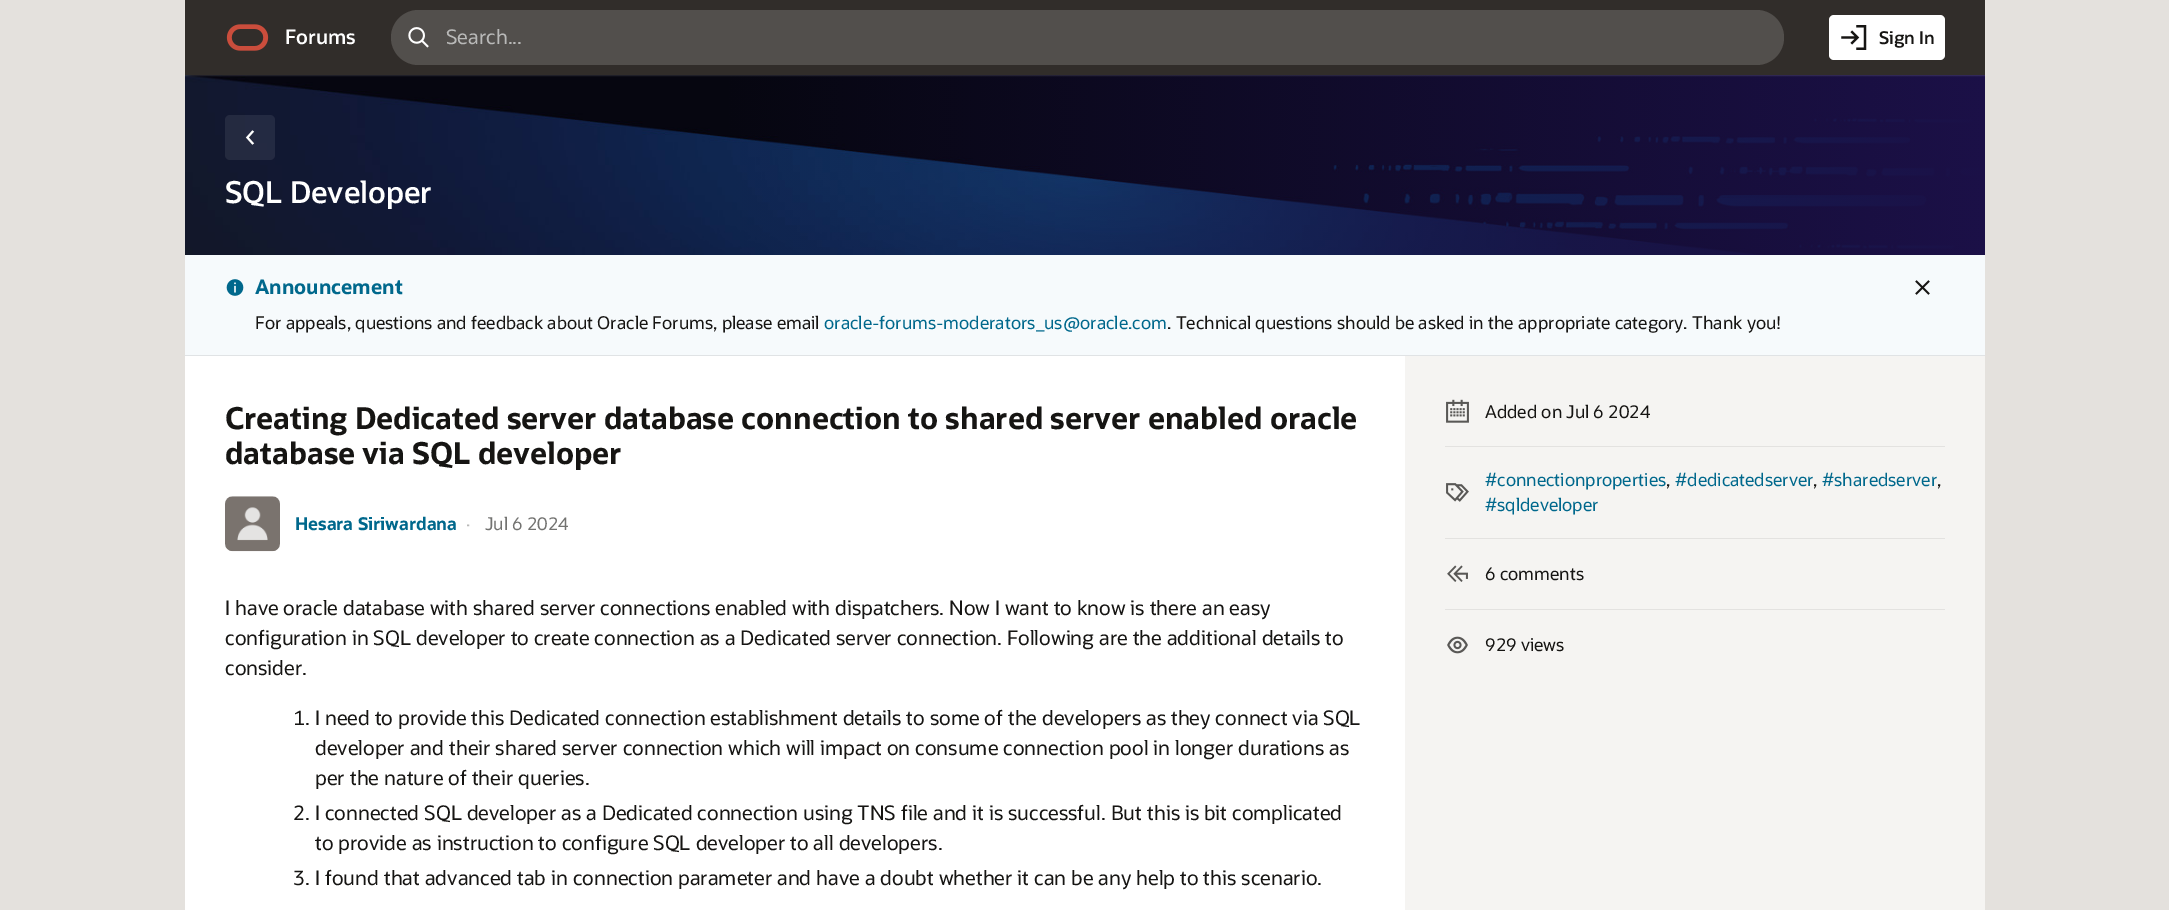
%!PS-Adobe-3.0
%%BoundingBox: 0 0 2169 910
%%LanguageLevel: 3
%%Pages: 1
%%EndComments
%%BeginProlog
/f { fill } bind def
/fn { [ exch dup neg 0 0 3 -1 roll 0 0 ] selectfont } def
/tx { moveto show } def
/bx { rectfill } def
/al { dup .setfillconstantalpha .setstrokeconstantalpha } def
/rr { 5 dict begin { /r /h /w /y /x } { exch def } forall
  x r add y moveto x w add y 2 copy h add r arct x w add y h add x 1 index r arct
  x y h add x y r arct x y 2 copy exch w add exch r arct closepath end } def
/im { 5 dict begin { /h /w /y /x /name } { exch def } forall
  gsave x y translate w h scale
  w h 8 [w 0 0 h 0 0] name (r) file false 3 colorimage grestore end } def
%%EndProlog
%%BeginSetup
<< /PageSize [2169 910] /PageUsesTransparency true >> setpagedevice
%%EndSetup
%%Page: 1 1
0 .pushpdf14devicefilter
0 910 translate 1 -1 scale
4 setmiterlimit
0.894 0.882 0.867 setrgbcolor
0 0 2169 910 bx
(image3.raw) 185 75 1800 180 im
0.1 al
1 setgray
184.5 -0.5 1801 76 rectstroke
1 al
0.192 0.176 0.165 setrgbcolor
185 0 1800 75 bx
(image0.raw) 226 24 43 27 im
/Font-SemiBold 20 fn
1 setgray
(Forums) 285 44 tx
0.322 0.31 0.298 setrgbcolor
391 10 1393 55 27.5 rr f
(image1.raw) 408 27 21 21 im
/Font-Regular 20 fn
0.725 0.725 0.722 setrgbcolor
(Search...) 446 44 tx
1 setgray
1829 15 116 45 5 rr f
(image2.raw) 1841 25 26 25 im
/Font-SemiBold 17.5 fn
0.086 0.082 0.075 setrgbcolor
(Sign In) 1879 44 tx
0.08 al
0.984 0.976 0.973 setrgbcolor
225 115 50 45 5 rr f
1 al
(image4.raw) 245 130 10 15 im
/Font-SemiBold 30 fn
1 setgray
(SQL Developer) 225 203 tx
0.965 0.98 0.988 setrgbcolor
185 255 1800 100 bx
0.878 0.89 0.898 setrgbcolor
185 355 1800 1 bx
(image5.raw) 226 279 18 17 im
/Font-Bold 20 fn
0 0.408 0.549 setrgbcolor
(Announcement) 255 294 tx
/Font-Regular 17.5 fn
0.086 0.082 0.075 setrgbcolor
(For appeals, questions and feedback about Oracle Forums, please email) 255 329 tx
0 0.408 0.549 setrgbcolor
(oracle-forums-moderators_us@oracle.com) 824 329 tx
0.086 0.082 0.075 setrgbcolor
(. Technical questions should be asked in the appropriate category. Thank you!) 1167 329 tx
(image6.raw) 1915 280 15 15 im
1 setgray
185 356 1220 554 bx
/Font-Bold 30 fn
0.086 0.082 0.075 setrgbcolor
(Creating Dedicated server database connection to shared server enabled oracle) 225 429 tx
(database via SQL developer) 225 464 tx
(image7.raw) 225 496 55 56 im
/Font-Bold 17.5 fn
0 0.408 0.549 setrgbcolor
(Hesara Siriwardana) 295 530 tx
/Font-Regular 17.5 fn
0.725 0.725 0.722 setrgbcolor
(·) 466 530 tx
0.451 0.451 0.443 setrgbcolor
(Jul 6 2024) 485 530 tx
/Font-Regular 20 fn
0.086 0.082 0.075 setrgbcolor
(I have oracle database with shared server connections enabled with dispatchers. Now I want to know is there an easy) 225 615 tx
(configuration in SQL developer to create connection as a Dedicated server connection. Following are the additional details to) 225 645 tx
(consider.) 225 675 tx
(1. I need to provide this Dedicated connection establishment details to some of the developers as they connect via SQL) 293 725 tx
(developer and their shared server connection which will impact on consume connection pool in longer durations as) 315 755 tx
(per the nature of their queries.) 315 785 tx
(2. I connected SQL developer as a Dedicated connection using TNS file and it is successful. But this is bit complicated) 293 820 tx
(to provide as instruction to configure SQL developer to all developers.) 315 850 tx
(3. I found that advanced tab in connection parameter and have a doubt whether it can be any help to this scenario.) 293 885 tx
0.961 0.957 0.949 setrgbcolor
1405 356 580 554 bx
0.89 0.886 0.878 setrgbcolor
1445 446 500 1 bx
(image8.raw) 1446 399 23 24 im
/Font-Regular 17.5 fn
0.086 0.082 0.075 setrgbcolor
(Added on Jul 6 2024) 1485 418 tx
0.89 0.886 0.878 setrgbcolor
1445 538 500 1 bx
(image9.raw) 1446 483 23 19 im
0 0.408 0.549 setrgbcolor
(#connectionproperties) 1485 486 tx
0.086 0.082 0.075 setrgbcolor
(,) 1666 486 tx
0 0.408 0.549 setrgbcolor
(#dedicatedserver) 1675 486 tx
0.086 0.082 0.075 setrgbcolor
(,) 1813 486 tx
0 0.408 0.549 setrgbcolor
(#sharedserver) 1822 486 tx
0.086 0.082 0.075 setrgbcolor
(,) 1937 486 tx
0 0.408 0.549 setrgbcolor
(#sqldeveloper) 1485 511 tx
0.89 0.886 0.878 setrgbcolor
1445 609 500 1 bx
(image10.raw) 1447 565 21 17 im
0.086 0.082 0.075 setrgbcolor
(6 comments) 1485 580 tx
(image11.raw) 1447 636 21 18 im
(929 views) 1485 651 tx
.poppdf14devicefilter showpage
%%EOF
